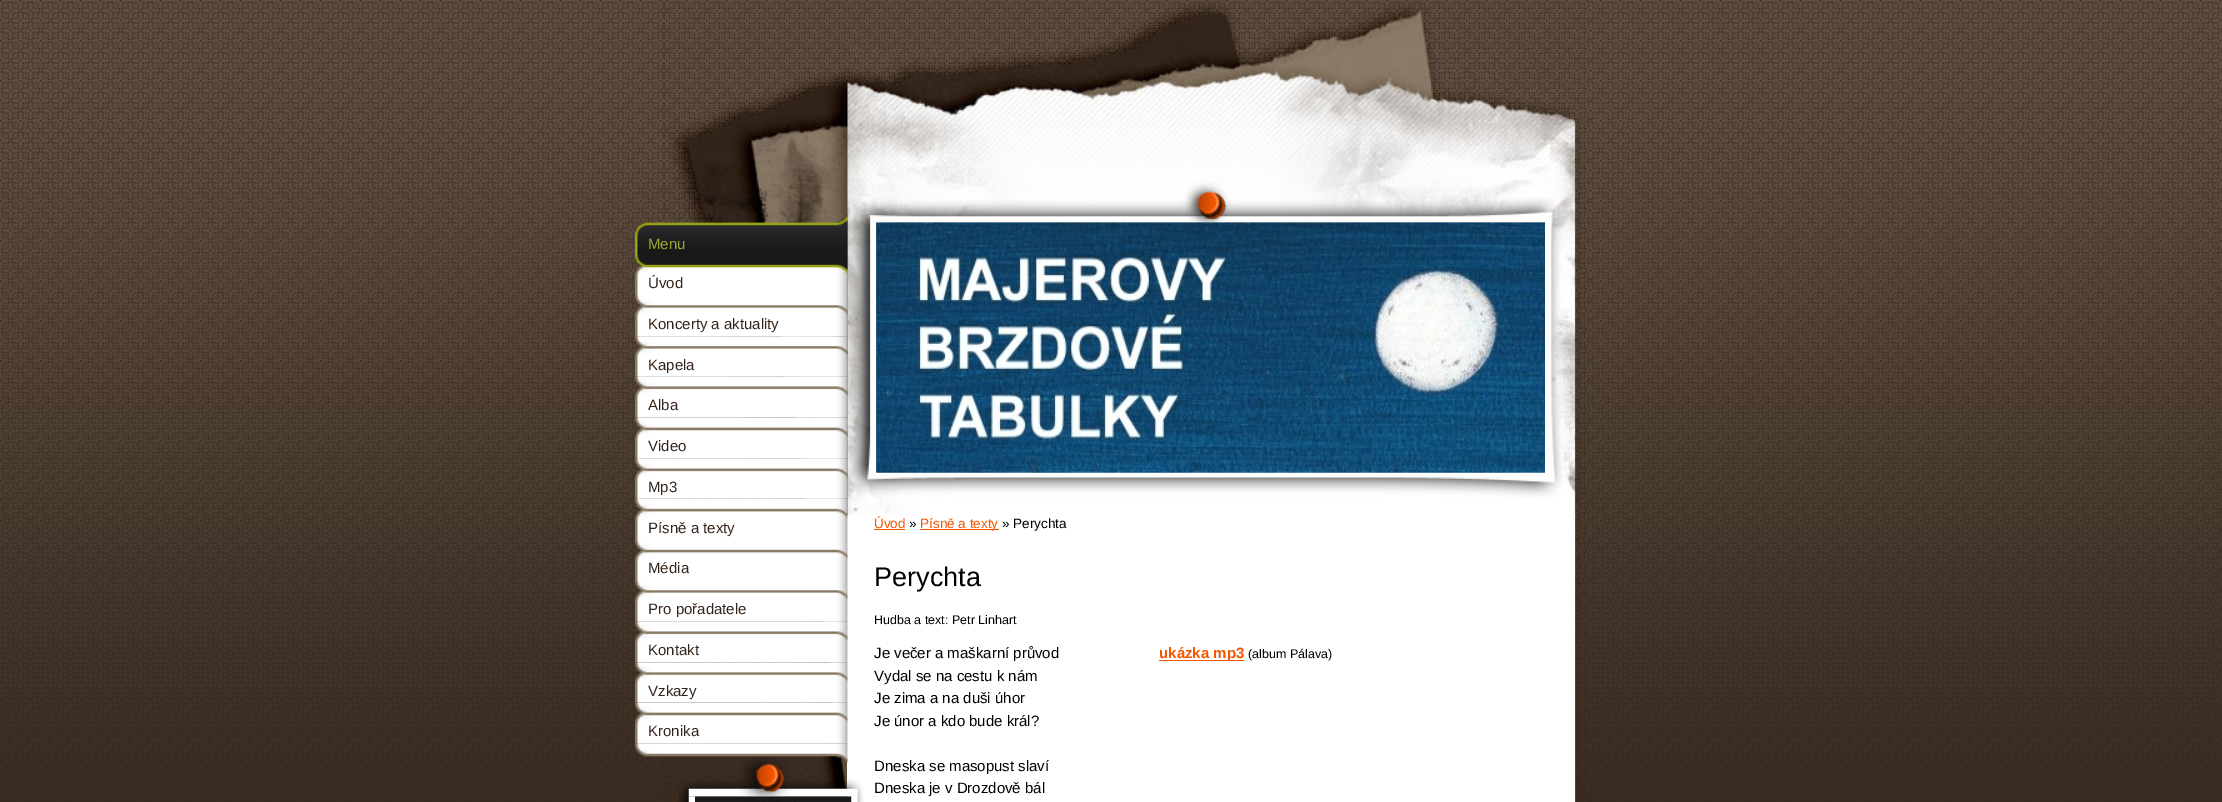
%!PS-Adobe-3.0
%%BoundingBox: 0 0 2222 802
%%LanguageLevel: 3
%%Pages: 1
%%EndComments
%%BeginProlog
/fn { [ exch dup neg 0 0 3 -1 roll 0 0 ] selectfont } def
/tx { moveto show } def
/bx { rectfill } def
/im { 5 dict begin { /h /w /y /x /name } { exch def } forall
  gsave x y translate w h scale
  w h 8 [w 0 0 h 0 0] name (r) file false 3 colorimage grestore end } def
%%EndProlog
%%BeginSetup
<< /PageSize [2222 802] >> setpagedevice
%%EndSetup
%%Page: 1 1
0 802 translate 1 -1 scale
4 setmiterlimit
1 setgray
0 0 2222 802 bx
(image0.raw) 0 0 2222 802 im
(image1.raw) 663 0 925 802 im
(image2.raw) 876 222 669 251 im
(image3.raw) 876 222 669 251 im
847 515 728 287 bx
(image18.raw) 678 756 185 41 im
(image4.raw) 635 743 213 20 im
(image5.raw) 635 215 213 40 im
/LiberationSans-Regular 15 fn
0.608 0.659 0.196 setrgbcolor
(Menu) 648 249 tx
(image6.raw) 635 255 213 40 im
0.2 0.145 0.106 setrgbcolor
(Úvod) 648 288 tx
(image7.raw) 635 295 213 42 im
(Koncerty a aktuality) 648 329 tx
(image8.raw) 635 336 213 41 im
(Kapela) 648 370 tx
(image9.raw) 635 376 213 42 im
(Alba) 648 410 tx
(image10.raw) 635 417 213 42 im
(Video) 648 451 tx
(image11.raw) 635 458 213 41 im
(Mp3) 648 492 tx
(image12.raw) 635 498 213 42 im
(Písně a texty) 648 533 tx
(image13.raw) 635 540 213 40 im
(Média) 648 573 tx
(image14.raw) 635 580 213 42 im
(Pro pořadatele) 648 614 tx
(image15.raw) 635 621 213 42 im
(Kontakt) 648 655 tx
(image16.raw) 635 662 213 41 im
(Vzkazy) 648 696 tx
(image17.raw) 635 702 213 42 im
(Kronika) 648 736 tx
(image19.raw) 677 796 187 6 im
(image20.raw) 695 796 157 6 im
/LiberationSans-Regular 13.5 fn
0.953 0.333 0 setrgbcolor
(Úvod) 874 528 tx
874 529 31 1 bx
0 setgray
(») 909 528 tx
0.953 0.333 0 setrgbcolor
920 529 79 1 bx
(Písně a texty) 920 528 tx
0 setgray
(» Perychta) 1002 528 tx
/LiberationSans-Regular 27 fn
(Perychta) 874 586 tx
/LiberationSans-Regular 12.5 fn
(Hudba a text: Petr Linhart) 874 624 tx
/LiberationSans-Regular 15 fn
(Je večer a maškarní průvod) 874 658 tx
0.953 0.333 0 setrgbcolor
1159 660 85 1 bx
/LiberationSans-Bold 15 fn
(ukázka mp3) 1159 658 tx
/LiberationSans-Regular 12.5 fn
0 setgray
(\(album Pálava\)) 1248 658 tx
/LiberationSans-Regular 15 fn
(Vydal se na cestu k nám) 874 681 tx
(Je zima a na duši úhor) 874 703 tx
(Je únor a kdo bude král?) 874 726 tx
(Dneska se masopust slaví) 874 771 tx
(Dneska je v Drozdově bál) 874 793 tx
showpage
%%EOF
